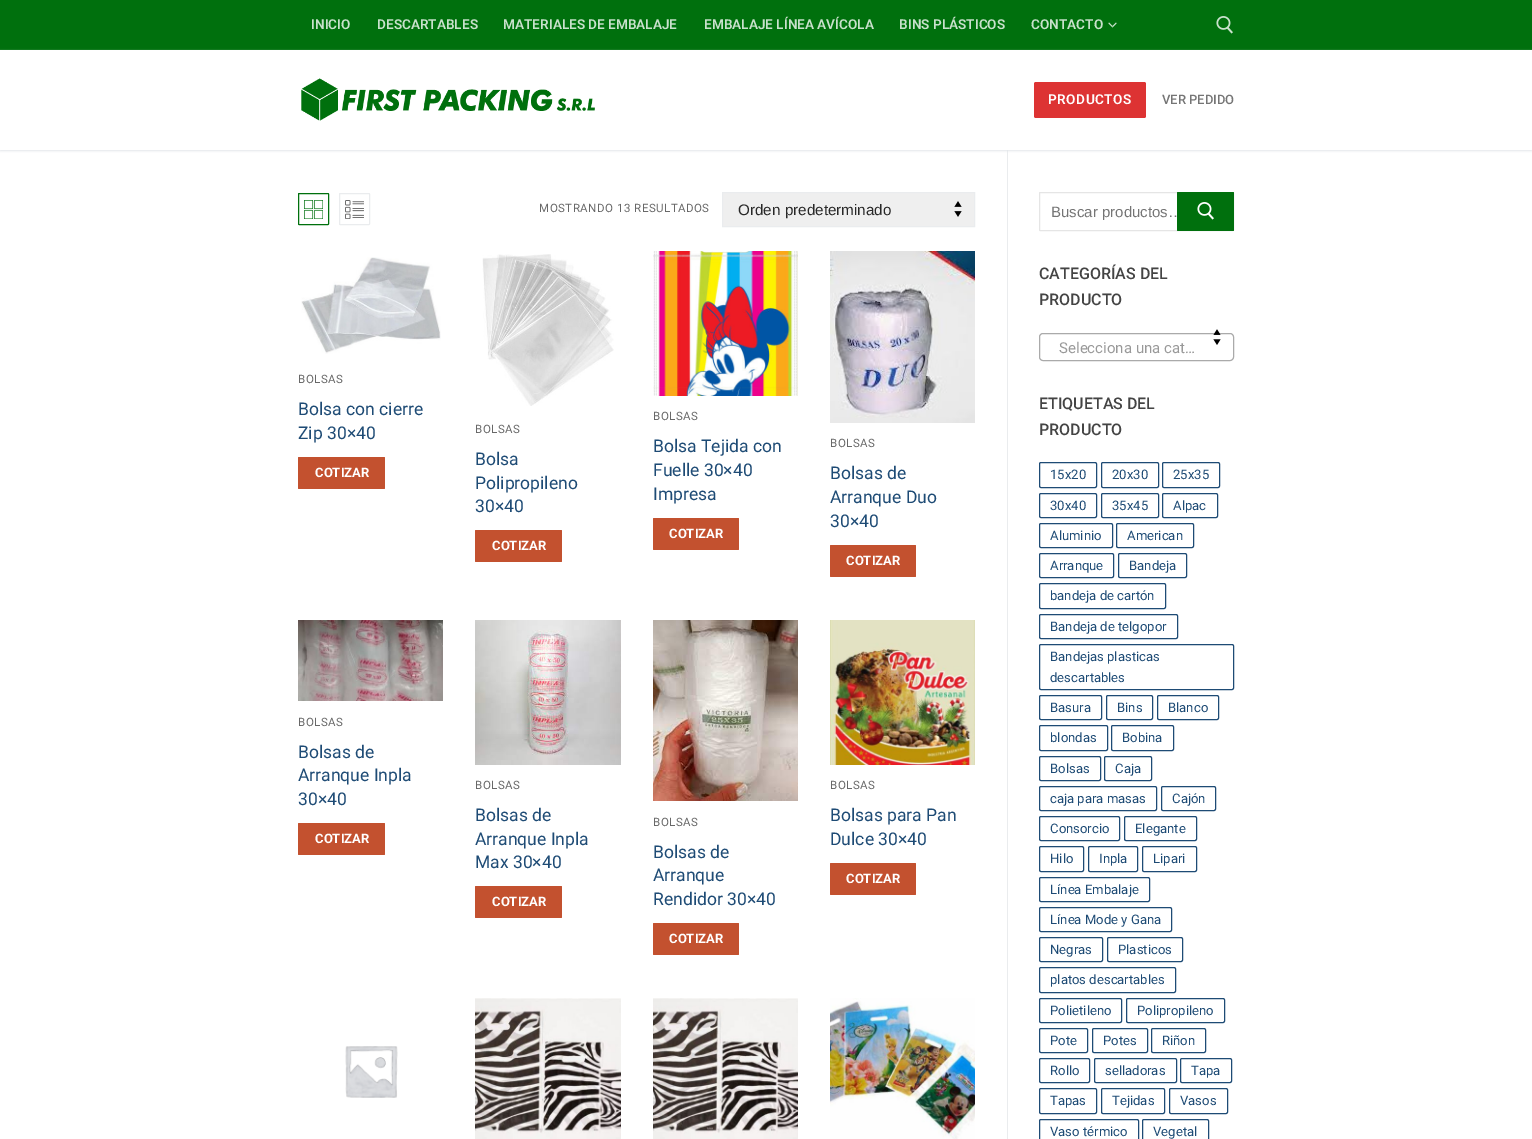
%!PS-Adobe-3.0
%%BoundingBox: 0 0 1532 1139
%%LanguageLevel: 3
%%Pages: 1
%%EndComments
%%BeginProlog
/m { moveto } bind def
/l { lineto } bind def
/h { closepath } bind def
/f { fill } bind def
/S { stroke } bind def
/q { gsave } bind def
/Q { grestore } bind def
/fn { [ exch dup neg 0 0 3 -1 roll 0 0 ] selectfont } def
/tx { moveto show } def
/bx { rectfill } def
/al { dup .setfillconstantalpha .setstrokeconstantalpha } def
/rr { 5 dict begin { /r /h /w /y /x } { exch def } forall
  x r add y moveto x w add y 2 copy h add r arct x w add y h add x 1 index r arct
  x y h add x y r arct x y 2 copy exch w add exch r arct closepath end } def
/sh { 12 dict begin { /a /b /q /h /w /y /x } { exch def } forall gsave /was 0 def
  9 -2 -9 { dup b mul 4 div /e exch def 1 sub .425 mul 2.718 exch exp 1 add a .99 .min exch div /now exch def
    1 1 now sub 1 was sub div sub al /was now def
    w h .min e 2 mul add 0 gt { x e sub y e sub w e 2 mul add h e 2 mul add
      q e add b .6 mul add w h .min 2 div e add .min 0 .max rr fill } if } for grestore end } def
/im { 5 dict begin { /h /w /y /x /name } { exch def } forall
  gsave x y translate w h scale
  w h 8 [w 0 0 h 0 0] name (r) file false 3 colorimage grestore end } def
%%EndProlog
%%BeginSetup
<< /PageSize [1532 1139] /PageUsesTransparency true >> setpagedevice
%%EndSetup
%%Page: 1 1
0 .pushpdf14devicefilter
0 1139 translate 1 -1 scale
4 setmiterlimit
1 setgray
0 0 1532 1139 bx
0 0.439 0.051 setrgbcolor
0 0 1532 50 bx
/Roboto-SemiBold 13.6 fn
0.788 0.882 0.8 setrgbcolor
(INICIO) 311 29 tx
(DESCARTABLES) 377 29 tx
(MATERIALES DE EMBALAJE) 503 29 tx
(EMBALAJE LÍNEA AVÍCOLA) 704 29 tx
(BINS PLÁSTICOS) 899 29 tx
(CONTACTO) 1031 29 tx
1112.5 27.5 m 1108.5 23.5 l 1109 22.5 l 1112.5 26 l h f
0.79 al
1 setgray
1116.5 23.5 m 1112.5 27.5 l 1112.5 26 l 1116 22.5 l h f
1 al
(image0.raw) 1216 16 17 18 im
0.918 0.925 0.933 setrgbcolor
1007 150 1 989 bx
q
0 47 m 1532 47 l 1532 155 l 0 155 l h 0 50 m 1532 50 l 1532 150 l 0 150 l h eoclip newpath
0.882 0.898 0.918 setrgbcolor
0 51 1532 100 0 1 1 sh
Q
(image1.raw) 301 78 294 43 im
0.867 0.2 0.2 setrgbcolor
1034 82 112 36 2 rr f
1 setgray
1048 104 m 0.5 0 (PRODUCTOS) ashow
/Roboto-Medium 13 fn
0.459 setgray
(VER PEDIDO) 1162 104 tx
0 0.439 0.051 setrgbcolor
298.5 193.5 30 31 0.5 rr S
(image2.raw) 304 200 19 19 im
0.918 0.925 0.933 setrgbcolor
339.5 193.5 30 31 0.5 rr S
(image3.raw) 345 200 19 19 im
/Roboto-Regular 11.5 fn
0.408 setgray
539 212 m 0.5 0 (MOSTRANDO 13 RESULTADOS) ashow
0.937 setgray
723 193 251 33 bx
(image4.raw) 954 201 8 16 im
0.918 0.925 0.933 setrgbcolor
722.5 192.5 252 34 rectstroke
/LiberationSans-Regular 15.25 fn
0.157 setgray
(Orden predeterminado) 738 215 tx
(image5.raw) 301 257 140 97 im
/Roboto-Regular 11.5 fn
0.408 setgray
298 383 m 0.5 0 (BOLSAS) ashow
/Roboto-Regular 17.5 fn
0.118 0.294 0.459 setrgbcolor
(Bolsa con cierre) 298 415 tx
(Zip 30×40) 298 439 tx
0.765 0.318 0.184 setrgbcolor
298 457 87 32 1 rr f
/Roboto-Bold 13 fn
1 setgray
(COTIZAR) 315 477 tx
(image6.raw) 482 254 132 152 im
/Roboto-Regular 11.5 fn
0.408 setgray
475 433 m 0.5 0 (BOLSAS) ashow
/Roboto-Regular 17.5 fn
0.118 0.294 0.459 setrgbcolor
(Bolsa) 475 465 tx
(Polipropileno) 475 489 tx
(30×40) 475 512 tx
0.765 0.318 0.184 setrgbcolor
475 530 87 32 1 rr f
/Roboto-Bold 13 fn
1 setgray
(COTIZAR) 492 550 tx
(image7.raw) 653 251 145 145 im
/Roboto-Regular 11.5 fn
0.408 setgray
653 420 m 0.5 0 (BOLSAS) ashow
/Roboto-Regular 17.5 fn
0.118 0.294 0.459 setrgbcolor
(Bolsa Tejida con) 653 452 tx
(Fuelle 30×40) 653 476 tx
(Impresa) 653 500 tx
0.765 0.318 0.184 setrgbcolor
653 518 86 32 1 rr f
/Roboto-Bold 13 fn
1 setgray
(COTIZAR) 669 538 tx
(image8.raw) 830 251 145 172 im
/Roboto-Regular 11.5 fn
0.408 setgray
830 447 m 0.5 0 (BOLSAS) ashow
/Roboto-Regular 17.5 fn
0.118 0.294 0.459 setrgbcolor
(Bolsas de) 830 479 tx
(Arranque Duo) 830 503 tx
(30×40) 830 527 tx
0.765 0.318 0.184 setrgbcolor
830 545 86 32 1 rr f
/Roboto-Bold 13 fn
1 setgray
(COTIZAR) 846 565 tx
(image9.raw) 298 620 145 81 im
/Roboto-Regular 11.5 fn
0.408 setgray
298 726 m 0.5 0 (BOLSAS) ashow
/Roboto-Regular 17.5 fn
0.118 0.294 0.459 setrgbcolor
(Bolsas de) 298 758 tx
(Arranque Inpla) 298 781 tx
(30×40) 298 805 tx
0.765 0.318 0.184 setrgbcolor
298 823 87 32 1 rr f
/Roboto-Bold 13 fn
1 setgray
(COTIZAR) 315 843 tx
(image10.raw) 475 620 146 145 im
/Roboto-Regular 11.5 fn
0.408 setgray
475 789 m 0.5 0 (BOLSAS) ashow
/Roboto-Regular 17.5 fn
0.118 0.294 0.459 setrgbcolor
(Bolsas de) 475 821 tx
(Arranque Inpla) 475 845 tx
(Max 30×40) 475 868 tx
0.765 0.318 0.184 setrgbcolor
475 886 87 32 1 rr f
/Roboto-Bold 13 fn
1 setgray
(COTIZAR) 492 906 tx
(image11.raw) 653 620 145 181 im
/Roboto-Regular 11.5 fn
0.408 setgray
653 826 m 0.5 0 (BOLSAS) ashow
/Roboto-Regular 17.5 fn
0.118 0.294 0.459 setrgbcolor
(Bolsas de) 653 858 tx
(Arranque) 653 881 tx
(Rendidor 30×40) 653 905 tx
0.765 0.318 0.184 setrgbcolor
653 923 86 32 1 rr f
/Roboto-Bold 13 fn
1 setgray
(COTIZAR) 669 943 tx
(image12.raw) 830 620 145 145 im
/Roboto-Regular 11.5 fn
0.408 setgray
830 789 m 0.5 0 (BOLSAS) ashow
/Roboto-Regular 17.5 fn
0.118 0.294 0.459 setrgbcolor
(Bolsas para Pan) 830 821 tx
(Dulce 30×40) 830 845 tx
0.765 0.318 0.184 setrgbcolor
830 863 86 32 1 rr f
/Roboto-Bold 13 fn
1 setgray
(COTIZAR) 846 883 tx
(image13.raw) 345 1046 53 52 im
(image14.raw) 475 998 146 141 im
(image15.raw) 653 998 145 141 im
(image16.raw) 830 998 145 141 im
0.898 setgray
1039.5 192.5 194 38 0.5 rr S
/LiberationSans-Regular 15 fn
0.459 setgray
(Buscar productos…) 1051 217 tx
0 0.439 0.051 setrgbcolor
1177 192 57 39 1 rr f
(image17.raw) 1197 202 17 18 im
/Roboto-Medium 16 fn
0.267 setgray
(CATEGORÍAS DEL) 1039 279 tx
(PRODUCTO) 1039 305 tx
0.667 setgray
1039.5 333.5 194 27 3.5 rr S
(image18.raw) 1213 329 8 16 im
/Roboto-Regular 15 fn
0.6 setgray
(Selecciona una cat…) 1059 353 tx
/Roboto-Medium 16 fn
0.267 setgray
(ETIQUETAS DEL) 1039 409 tx
(PRODUCTO) 1039 435 tx
0.118 0.294 0.459 setrgbcolor
1039.5 462.5 57 25 1.5 rr S
/Roboto-Regular 13.1 fn
(15x20) 1050 479 tx
1101.5 462.5 57 25 1.5 rr S
(20x30) 1112 479 tx
1162.5 462.5 57 25 1.5 rr S
(25x35) 1173 479 tx
1039.5 493.5 57 24 1.5 rr S
(30x40) 1050 510 tx
1101.5 493.5 57 24 1.5 rr S
(35x45) 1112 510 tx
1162.5 493.5 55 24 1.5 rr S
(Alpac) 1173 510 tx
1039.5 523.5 73 24 1.5 rr S
(Aluminio) 1050 540 tx
1116.5 523.5 77 24 1.5 rr S
(American) 1127 540 tx
1039.5 553.5 74 24 1.5 rr S
(Arranque) 1050 570 tx
1118.5 553.5 68 24 1.5 rr S
(Bandeja) 1129 570 tx
1039.5 583.5 126 25 1.5 rr S
(bandeja de cartón) 1050 600 tx
1039.5 614.5 138 24 1.5 rr S
(Bandeja de telgopor) 1050 631 tx
1039.5 644.5 194 45 1.5 rr S
(Bandejas plasticas) 1050 661 tx
(descartables) 1050 682 tx
1039.5 695.5 62 24 1.5 rr S
(Basura) 1050 712 tx
1106.5 695.5 46 24 1.5 rr S
(Bins) 1117 712 tx
1157.5 695.5 61 24 1.5 rr S
(Blanco) 1168 712 tx
1039.5 725.5 68 25 1.5 rr S
(blondas) 1050 742 tx
1111.5 725.5 62 25 1.5 rr S
(Bobina) 1122 742 tx
1039.5 756.5 61 24 1.5 rr S
(Bolsas) 1050 773 tx
1104.5 756.5 47 24 1.5 rr S
(Caja) 1115 773 tx
1039.5 786.5 117 24 1.5 rr S
(caja para masas) 1050 803 tx
1161.5 786.5 54 24 1.5 rr S
(Cajón) 1172 803 tx
1039.5 816.5 80 24 1.5 rr S
(Consorcio) 1050 833 tx
1124.5 816.5 72 24 1.5 rr S
(Elegante) 1135 833 tx
1039.5 846.5 44 25 1.5 rr S
(Hilo) 1050 863 tx
1088.5 846.5 49 25 1.5 rr S
(Inpla) 1099 863 tx
1142.5 846.5 54 25 1.5 rr S
(Lipari) 1153 863 tx
1039.5 877.5 110 24 1.5 rr S
(Línea Embalaje) 1050 894 tx
1039.5 907.5 132 24 1.5 rr S
(Línea Mode y Gana) 1050 924 tx
1039.5 937.5 63 24 1.5 rr S
(Negras) 1050 954 tx
1107.5 937.5 75 24 1.5 rr S
(Plasticos) 1118 954 tx
1039.5 967.5 136 25 1.5 rr S
(platos descartables) 1050 984 tx
1039.5 998.5 82 24 1.5 rr S
(Polietileno) 1050 1015 tx
1126.5 998.5 98 24 1.5 rr S
(Polipropileno) 1137 1015 tx
1039.5 1028.5 48 24 1.5 rr S
(Pote) 1050 1045 tx
1092.5 1028.5 55 24 1.5 rr S
(Potes) 1103 1045 tx
1151.5 1028.5 54 24 1.5 rr S
(Riñon) 1162 1045 tx
1039.5 1058.5 50 24 1.5 rr S
(Rollo) 1050 1075 tx
1094.5 1058.5 82 24 1.5 rr S
(selladoras) 1105 1075 tx
1180.5 1058.5 51 24 1.5 rr S
(Tapa) 1191 1075 tx
1039.5 1088.5 57 25 1.5 rr S
(Tapas) 1050 1105 tx
1101.5 1088.5 63 25 1.5 rr S
(Tejidas) 1112 1105 tx
1169.5 1088.5 58 25 1.5 rr S
(Vasos) 1180 1105 tx
1039.5 1119.5 99 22 1.5 rr S
(Vaso térmico) 1050 1136 tx
1142.5 1119.5 66 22 1.5 rr S
(Vegetal) 1153 1136 tx
.poppdf14devicefilter showpage
%%EOF
